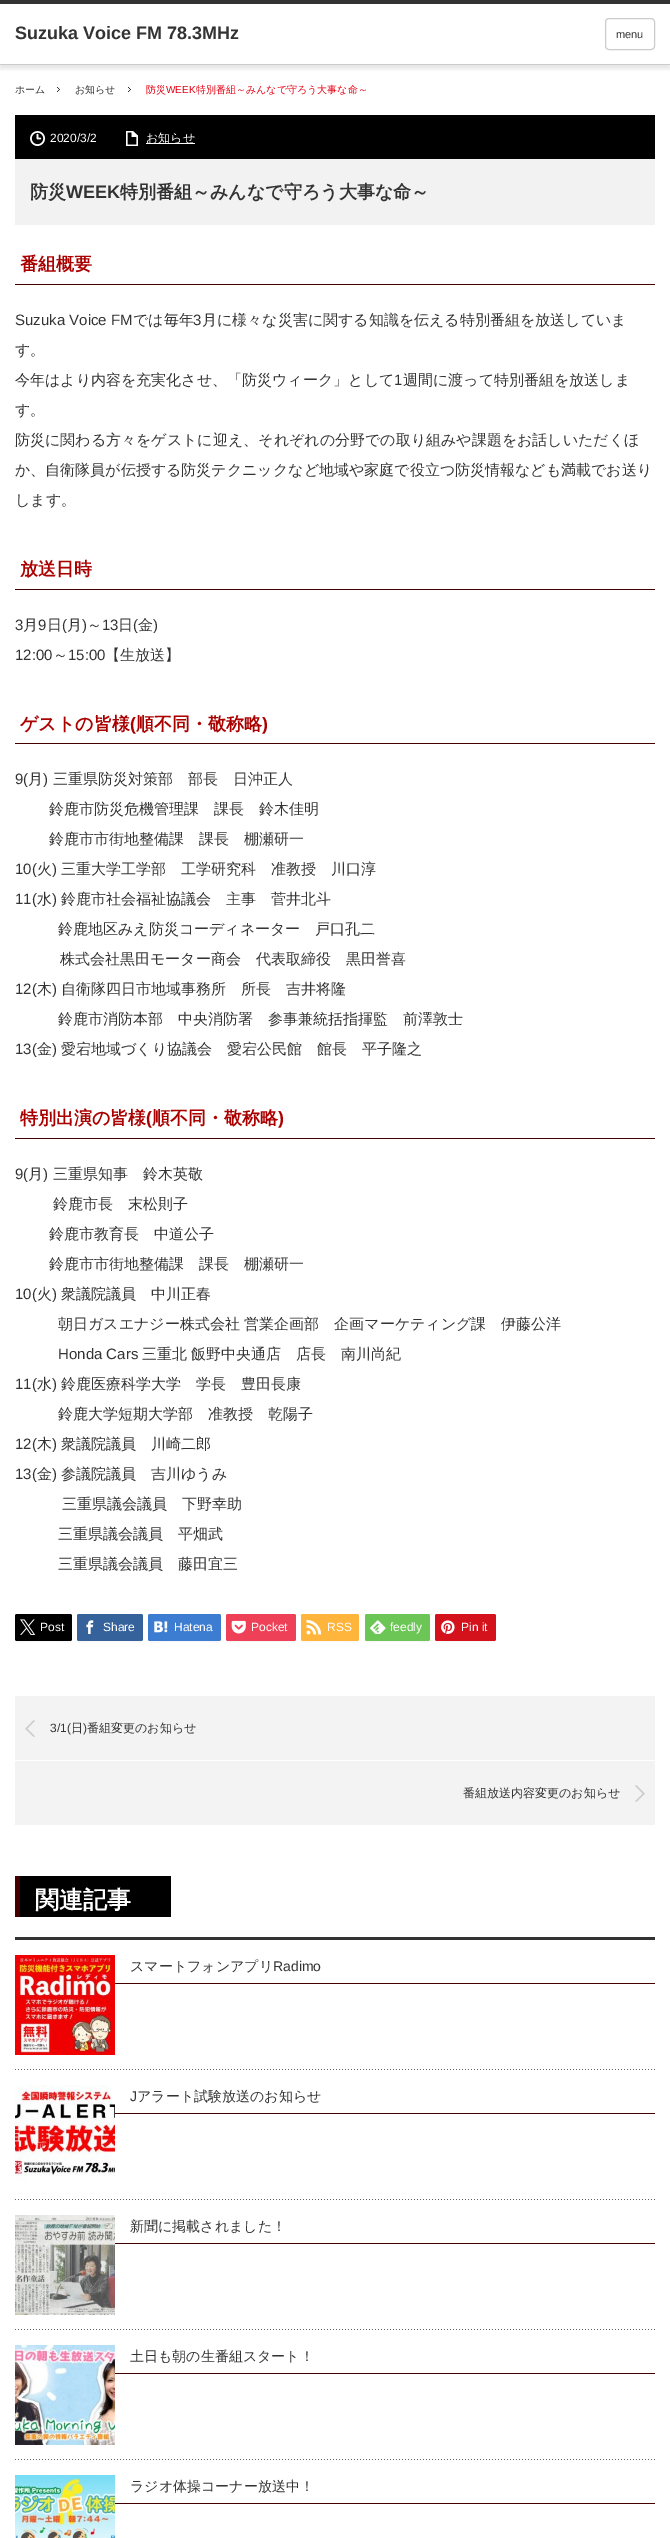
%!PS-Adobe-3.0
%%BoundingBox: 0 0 670 2538
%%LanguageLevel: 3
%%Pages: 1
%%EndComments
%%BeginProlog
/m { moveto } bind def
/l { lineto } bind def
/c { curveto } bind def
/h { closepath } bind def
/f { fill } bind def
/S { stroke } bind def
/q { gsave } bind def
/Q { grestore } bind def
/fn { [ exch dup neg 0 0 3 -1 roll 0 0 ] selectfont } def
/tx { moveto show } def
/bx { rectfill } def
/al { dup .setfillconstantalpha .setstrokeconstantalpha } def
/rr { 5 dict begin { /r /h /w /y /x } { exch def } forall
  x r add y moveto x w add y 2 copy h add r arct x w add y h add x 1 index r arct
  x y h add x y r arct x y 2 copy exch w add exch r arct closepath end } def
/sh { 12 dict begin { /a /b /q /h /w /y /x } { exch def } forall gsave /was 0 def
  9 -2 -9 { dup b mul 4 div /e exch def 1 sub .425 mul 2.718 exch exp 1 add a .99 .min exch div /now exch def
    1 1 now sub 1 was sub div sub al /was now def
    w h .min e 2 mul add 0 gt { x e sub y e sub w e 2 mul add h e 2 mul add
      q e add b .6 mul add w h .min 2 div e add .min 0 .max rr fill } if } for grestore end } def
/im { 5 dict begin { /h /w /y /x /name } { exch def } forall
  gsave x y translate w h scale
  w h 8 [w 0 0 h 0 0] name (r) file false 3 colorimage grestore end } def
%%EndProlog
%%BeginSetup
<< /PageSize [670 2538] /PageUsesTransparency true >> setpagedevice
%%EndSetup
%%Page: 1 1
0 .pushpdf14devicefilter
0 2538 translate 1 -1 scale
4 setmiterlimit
1 setgray
0 0 670 2538 bx
q
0 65 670 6 rectclip
0 setgray
0 4 670 65 0 2 0.1 sh
Q
0.2 setgray
0 0 670 4 bx
0.8 setgray
0 64 670 1 bx
/LiberationSans-Bold 18 fn
0.2 setgray
(Suzuka Voice FM 78.3MHz) 15 39 tx
0.8 setgray
605.5 18.5 49 31 3.5 rr S
/LiberationSans-Regular 11 fn
0.2 setgray
(menu) 616 38 tx
(image0.raw) 57 87 3 5 im
/WenQuanYiZenHei-Medium 10 fn
(ホーム) 15 93 tx
(image0.raw) 128 87 3 5 im
(お知らせ) 75 93 tx
0.898 0 0.071 setrgbcolor
(防災) 146 93 tx
/LiberationSans-Regular 10 fn
(WEEK) 166 93 tx
/WenQuanYiZenHei-Medium 10 fn
(特別番組～みんなで守ろう大事な命～) 196 93 tx
0 setgray
15 115 640 44 bx
(image1.raw) 30 131 15 15 im
/LiberationSans-Regular 12 fn
1 setgray
(2020/3/2) 50 142 tx
(image2.raw) 126 131 12 15 im
146 143 49 1 bx
/WenQuanYiZenHei-Medium 12 fn
(お知らせ) 146 142 tx
0.949 setgray
15 159 640 66 bx
/WenQuanYiZenHei-Bold 18 fn
0.2 setgray
(防災) 30 198 tx
/LiberationSans-Bold 18 fn
(WEEK) 66 198 tx
/WenQuanYiZenHei-Bold 18 fn
(特別番組～みんなで守ろう大事な命～) 120 198 tx
0.267 0 0 setrgbcolor
15 284 640 1 bx
0.667 0 0 setrgbcolor
(番組概要) 20 270 tx
/LiberationSans-Regular 15 fn
0.2 setgray
(Suzuka Voice FM) 15 325 tx
/WenQuanYiZenHei-Medium 15 fn
(では毎年) 133 325 tx
/LiberationSans-Regular 15 fn
(3) 193 325 tx
/WenQuanYiZenHei-Medium 15 fn
(月に様々な災害に関する知識を伝える特別番組を放送していま) 202 325 tx
(す。) 15 355 tx
(今年はより内容を充実化させ、「防災ウィーク」として) 15 385 tx
/LiberationSans-Regular 15 fn
(1) 394 385 tx
/WenQuanYiZenHei-Medium 15 fn
(週間に渡って特別番組を放送しま) 403 385 tx
(す。) 15 415 tx
(防災に関わる方々をゲストに迎え、それぞれの分野での取り組みや課題をお話しいただくほ) 15 445 tx
(か、自衛隊員が伝授する防災テクニックなど地域や家庭で役立つ防災情報なども満載でお送り) 15 475 tx
(します。) 15 505 tx
0.267 0 0 setrgbcolor
15 589 640 1 bx
/WenQuanYiZenHei-Bold 18 fn
0.667 0 0 setrgbcolor
(放送日時) 20 575 tx
/LiberationSans-Regular 15 fn
0.2 setgray
(3) 15 630 tx
/WenQuanYiZenHei-Medium 15 fn
(月) 23 630 tx
/LiberationSans-Regular 15 fn
(9) 38 630 tx
/WenQuanYiZenHei-Medium 15 fn
(日) 47 630 tx
/LiberationSans-Regular 15 fn
(\() 62 630 tx
/WenQuanYiZenHei-Medium 15 fn
(月) 67 630 tx
/LiberationSans-Regular 15 fn
(\)) 82 630 tx
/WenQuanYiZenHei-Medium 15 fn
(～) 87 630 tx
/LiberationSans-Regular 15 fn
(13) 102 630 tx
/WenQuanYiZenHei-Medium 15 fn
(日) 118 630 tx
/LiberationSans-Regular 15 fn
(\() 133 630 tx
/WenQuanYiZenHei-Medium 15 fn
(金) 138 630 tx
/LiberationSans-Regular 15 fn
(\)) 153 630 tx
(12:00) 15 660 tx
/WenQuanYiZenHei-Medium 15 fn
(～) 53 660 tx
/LiberationSans-Regular 15 fn
(15:00) 68 660 tx
/WenQuanYiZenHei-Medium 15 fn
(【生放送】) 105 660 tx
0.267 0 0 setrgbcolor
15 743 640 1 bx
/WenQuanYiZenHei-Bold 18 fn
0.667 0 0 setrgbcolor
(ゲストの皆様) 20 730 tx
/LiberationSans-Bold 18 fn
(\() 130 730 tx
/WenQuanYiZenHei-Bold 18 fn
(順不同・敬称略) 136 730 tx
/LiberationSans-Bold 18 fn
(\)) 262 730 tx
/LiberationSans-Regular 15 fn
0.2 setgray
(9\() 15 784 tx
/WenQuanYiZenHei-Medium 15 fn
(月) 28 784 tx
/LiberationSans-Regular 15 fn
(\)) 43 784 tx
/WenQuanYiZenHei-Medium 15 fn
(三重県防災対策部　部長　日沖正人) 53 784 tx
(鈴鹿市防災危機管理課　課長　鈴木佳明) 49 814 tx
(鈴鹿市市街地整備課　課長　棚瀬研一) 49 844 tx
/LiberationSans-Regular 15 fn
(10\() 15 874 tx
/WenQuanYiZenHei-Medium 15 fn
(火) 37 874 tx
/LiberationSans-Regular 15 fn
(\)) 52 874 tx
/WenQuanYiZenHei-Medium 15 fn
(三重大学工学部　工学研究科　准教授　川口淳) 61 874 tx
/LiberationSans-Regular 15 fn
(11\() 15 904 tx
/WenQuanYiZenHei-Medium 15 fn
(水) 37 904 tx
/LiberationSans-Regular 15 fn
(\)) 52 904 tx
/WenQuanYiZenHei-Medium 15 fn
(鈴鹿市社会福祉協議会　主事　菅井北斗) 61 904 tx
(鈴鹿地区みえ防災コーディネーター　戸口孔二) 58 934 tx
(株式会社黒田モーター商会　代表取締役　黒田誉喜) 60 964 tx
/LiberationSans-Regular 15 fn
(12\() 15 994 tx
/WenQuanYiZenHei-Medium 15 fn
(木) 37 994 tx
/LiberationSans-Regular 15 fn
(\)) 52 994 tx
/WenQuanYiZenHei-Medium 15 fn
(自衛隊四日市地域事務所　所長　吉井将隆) 61 994 tx
(鈴鹿市消防本部　中央消防署　参事兼統括指揮監　前澤敦士) 58 1024 tx
/LiberationSans-Regular 15 fn
(13\() 15 1054 tx
/WenQuanYiZenHei-Medium 15 fn
(金) 37 1054 tx
/LiberationSans-Regular 15 fn
(\)) 52 1054 tx
/WenQuanYiZenHei-Medium 15 fn
(愛宕地域づくり協議会　愛宕公民館　館長　平子隆之) 61 1054 tx
0.267 0 0 setrgbcolor
15 1138 640 1 bx
/WenQuanYiZenHei-Bold 18 fn
0.667 0 0 setrgbcolor
(特別出演の皆様) 20 1124 tx
/LiberationSans-Bold 18 fn
(\() 146 1124 tx
/WenQuanYiZenHei-Bold 18 fn
(順不同・敬称略) 152 1124 tx
/LiberationSans-Bold 18 fn
(\)) 278 1124 tx
/LiberationSans-Regular 15 fn
0.2 setgray
(9\() 15 1179 tx
/WenQuanYiZenHei-Medium 15 fn
(月) 28 1179 tx
/LiberationSans-Regular 15 fn
(\)) 43 1179 tx
/WenQuanYiZenHei-Medium 15 fn
(三重県知事　鈴木英敬) 53 1179 tx
(鈴鹿市長　末松則子) 53 1209 tx
(鈴鹿市教育長　中道公子) 49 1239 tx
(鈴鹿市市街地整備課　課長　棚瀬研一) 49 1269 tx
/LiberationSans-Regular 15 fn
(10\() 15 1299 tx
/WenQuanYiZenHei-Medium 15 fn
(火) 37 1299 tx
/LiberationSans-Regular 15 fn
(\)) 52 1299 tx
/WenQuanYiZenHei-Medium 15 fn
(衆議院議員　中川正春) 61 1299 tx
(朝日ガスエナジー株式会社 営業企画部　企画マーケティング課　伊藤公洋) 58 1329 tx
/LiberationSans-Regular 15 fn
(Honda Cars) 58 1359 tx
/WenQuanYiZenHei-Medium 15 fn
(三重北) 142 1359 tx
(飯野中央通店　店長　南川尚紀) 191 1359 tx
/LiberationSans-Regular 15 fn
(11\() 15 1389 tx
/WenQuanYiZenHei-Medium 15 fn
(水) 37 1389 tx
/LiberationSans-Regular 15 fn
(\)) 52 1389 tx
/WenQuanYiZenHei-Medium 15 fn
(鈴鹿医療科学大学　学長　豊田長康) 61 1389 tx
(鈴鹿大学短期大学部　准教授　乾陽子) 58 1419 tx
/LiberationSans-Regular 15 fn
(12\() 15 1449 tx
/WenQuanYiZenHei-Medium 15 fn
(木) 37 1449 tx
/LiberationSans-Regular 15 fn
(\)) 52 1449 tx
/WenQuanYiZenHei-Medium 15 fn
(衆議院議員　川崎二郎) 61 1449 tx
/LiberationSans-Regular 15 fn
(13\() 15 1479 tx
/WenQuanYiZenHei-Medium 15 fn
(金) 37 1479 tx
/LiberationSans-Regular 15 fn
(\)) 52 1479 tx
/WenQuanYiZenHei-Medium 15 fn
(参議院議員　吉川ゆうみ) 61 1479 tx
(三重県議会議員　下野幸助) 62 1509 tx
(三重県議会議員　平畑武) 58 1539 tx
(三重県議会議員　藤田宜三) 58 1569 tx
0.969 setgray
15 1639 m 15 1644 22 1642 26 1642 c 61 1642 l 65 1642 72 1644 72 1639 c 72 1643 65 1641 61 1641 c 16 1641 l h f
0 setgray
15 1614 57 27 2 rr f
(image3.raw) 20 1619 16 16 im
/LiberationSans-Regular 12 fn
1 setgray
(Post) 40 1631 tx
0.969 setgray
77 1639 m 77 1645 86 1642 89 1642 c 131 1642 l 134 1642 143 1645 143 1639 c 142 1641 l 89 1641 l 85 1641 77 1643 77 1639 c h f
0.208 0.384 0.604 setrgbcolor
77 1614 66 27 2 rr f
(image4.raw) 86 1620 8 14 im
1 setgray
(Share) 103 1631 tx
0.969 setgray
148 1639 m 148 1645 158 1642 162 1642 c 208 1642 l 211 1642 221 1645 221 1639 c 221 1640 220 1641 219 1641 c 150 1641 l 149 1641 148 1640 148 1639 c h f
0.235 0.49 0.82 setrgbcolor
148 1614 73 27 2 rr f
(image5.raw) 154 1621 14 12 im
1 setgray
(Hatena) 174 1631 tx
0.969 setgray
226 1639 m 226 1645 235 1642 239 1642 c 283 1642 l 287 1642 296 1645 296 1639 c 296 1640 295 1641 294 1641 c 227 1641 l h f
0.933 0.251 0.337 setrgbcolor
226 1614 70 27 2 rr f
(image6.raw) 231 1620 15 14 im
1 setgray
(Pocket) 251 1631 tx
0.969 setgray
301 1639 m 301 1644 308 1642 312 1642 c 348 1642 l 352 1642 359 1644 359 1639 c 358 1641 l 302 1641 l h f
1 0.71 0.235 setrgbcolor
301 1614 58 27 2 rr f
(image7.raw) 306 1619 16 16 im
1 setgray
(RSS) 327 1631 tx
0.969 setgray
365 1639 m 365 1645 373 1642 377 1642 c 418 1642 l 422 1642 430 1645 430 1639 c 429 1641 l 377 1641 l 373 1641 365 1643 365 1639 c h f
0.424 0.776 0.333 setrgbcolor
365 1614 65 27 2 rr f
(image8.raw) 370 1620 16 14 im
1 setgray
(feedly) 390 1631 tx
0.969 setgray
435 1639 m 435 1645 443 1642 446 1642 c 484 1642 l 488 1642 496 1645 496 1639 c 495 1641 l 446 1641 l 443 1641 438 1643 436 1640 c h f
0.831 0.071 0.11 setrgbcolor
435 1614 61 27 2 rr f
(image9.raw) 441 1620 14 14 im
1 setgray
(Pin it) 461 1631 tx
0.953 setgray
15 1696 640 64 bx
(image10.raw) 25 1720 10 17 im
0.2 setgray
(3/1\() 50 1732 tx
/WenQuanYiZenHei-Medium 12 fn
(日) 71 1732 tx
/LiberationSans-Regular 12 fn
(\)) 83 1732 tx
/WenQuanYiZenHei-Medium 12 fn
(番組変更のお知らせ) 87 1732 tx
0.953 setgray
15 1761 640 64 bx
(image11.raw) 635 1785 10 17 im
0.2 setgray
(番組放送内容変更のお知らせ) 463 1797 tx
0 setgray
20 1876 151 41 bx
0.267 0 0 setrgbcolor
15 1876 5 41 bx
/WenQuanYiZenHei-Bold 24 fn
1 setgray
(関連記事) 35 1908 tx
0.2 setgray
15 1937 640 3 bx
(image12.raw) 15 2069 640 1 im
(image13.raw) 15 1955 100 100 im
0.267 0 0 setrgbcolor
115 1983 540 1 bx
/WenQuanYiZenHei-Medium 14 fn
0.2 setgray
(スマートフォンアプリ) 130 1971 tx
/LiberationSans-Regular 14 fn
(Radimo) 273 1971 tx
(image12.raw) 15 2199 640 1 im
(image14.raw) 15 2085 100 100 im
0.267 0 0 setrgbcolor
115 2113 540 1 bx
0.2 setgray
(J) 130 2101 tx
/WenQuanYiZenHei-Medium 14 fn
(アラート試験放送のお知らせ) 137 2101 tx
(image12.raw) 15 2329 640 1 im
(image15.raw) 15 2215 100 100 im
0.267 0 0 setrgbcolor
115 2243 540 1 bx
0.2 setgray
(新聞に掲載されました！) 130 2231 tx
(image12.raw) 15 2459 640 1 im
(image16.raw) 15 2345 100 100 im
0.267 0 0 setrgbcolor
115 2373 540 1 bx
0.2 setgray
(土日も朝の生番組スタート！) 130 2361 tx
(image17.raw) 15 2475 100 63 im
0.267 0 0 setrgbcolor
115 2503 540 1 bx
0.2 setgray
(ラジオ体操コーナー放送中！) 130 2491 tx
.poppdf14devicefilter showpage
%%EOF
